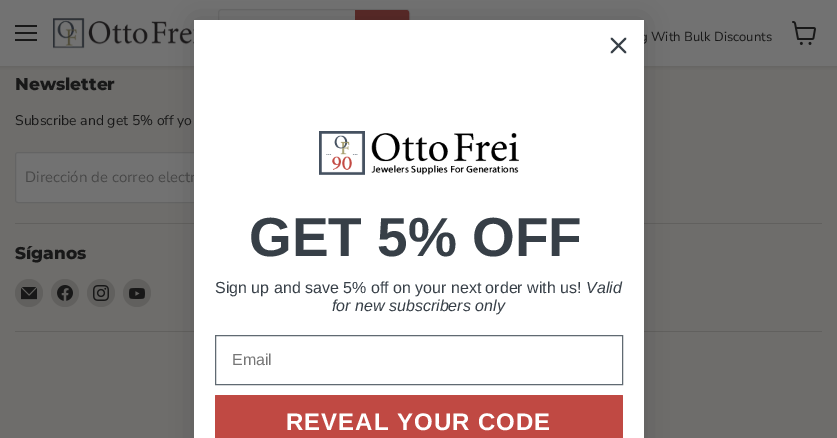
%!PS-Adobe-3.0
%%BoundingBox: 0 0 837 438
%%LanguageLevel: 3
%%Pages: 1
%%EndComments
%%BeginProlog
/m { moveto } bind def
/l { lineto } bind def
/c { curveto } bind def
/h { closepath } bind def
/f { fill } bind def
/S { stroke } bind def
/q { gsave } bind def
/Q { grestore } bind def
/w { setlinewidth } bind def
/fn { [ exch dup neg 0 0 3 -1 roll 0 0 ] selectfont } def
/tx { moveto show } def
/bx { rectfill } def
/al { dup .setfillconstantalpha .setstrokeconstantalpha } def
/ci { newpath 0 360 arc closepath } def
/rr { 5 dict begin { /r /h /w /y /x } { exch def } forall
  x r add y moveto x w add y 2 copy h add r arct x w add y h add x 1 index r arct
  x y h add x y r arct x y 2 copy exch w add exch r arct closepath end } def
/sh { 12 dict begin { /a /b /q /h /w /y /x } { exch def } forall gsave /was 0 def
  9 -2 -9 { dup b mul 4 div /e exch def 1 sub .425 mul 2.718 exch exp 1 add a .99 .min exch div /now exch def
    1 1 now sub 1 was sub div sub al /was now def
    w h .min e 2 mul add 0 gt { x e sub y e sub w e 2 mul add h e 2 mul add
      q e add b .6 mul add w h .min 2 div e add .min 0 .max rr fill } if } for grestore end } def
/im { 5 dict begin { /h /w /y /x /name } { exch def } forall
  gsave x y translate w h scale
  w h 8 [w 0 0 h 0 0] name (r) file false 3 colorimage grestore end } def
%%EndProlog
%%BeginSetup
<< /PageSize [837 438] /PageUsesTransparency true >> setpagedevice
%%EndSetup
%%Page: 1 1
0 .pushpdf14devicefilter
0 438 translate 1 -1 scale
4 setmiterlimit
0.431 0.427 0.42 setrgbcolor
0 0 837 438 bx
0.247 setgray
0 1 837 66 0 2 0.25 sh
0.447 setgray
0 0 837 66 bx
0.094 setgray
15 25 22 2 bx
15 32 22 2 bx
15 39 22 2 bx
(image0.raw) 53 18 141 31 im
0.2 al
0.247 setgray
218.5 9.5 191 47 3.5 rr S
1 al
0.349 0.161 0.153 setrgbcolor
355.5 10.5 m 406 10.5 l 407.5 10.5 408.5 11.5 408.5 13 c 408.5 53 l 408.5 54.5 407.5 55.5 406 55.5 c 355.5 55.5 l h q f Q
S
/NunitoSans-Regular 13.1 fn
0.094 setgray
(g With Bulk Discounts) 640 41 tx
(image1.raw) 792 21 24 24 im
0.38 0.376 0.369 setrgbcolor
15 223 807 1 bx
/Montserrat-ExtraBold 17 fn
0.094 setgray
(Newsletter) 15 90 tx
/NunitoSans-Regular 14 fn
(Subscribe and get 5% off yo) 15 125 tx
0.447 setgray
15.5 152.5 244 50 2.5 rr q f Q
0.392 setgray
S
/NunitoSans-Regular 15 fn
0.278 setgray
(Dirección de correo electr) 25 182 tx
0.38 0.376 0.369 setrgbcolor
15 331 807 1 bx
/Montserrat-ExtraBold 17 fn
0.094 setgray
(Síganos) 15 259 tx
0.38 0.376 0.369 setrgbcolor
29 293 14 ci f
(image2.raw) 21 287 16 13 im
65 293 14 ci f
(image3.raw) 57 285 16 16 im
101 293 14 ci f
(image4.raw) 93 285 16 16 im
137 293 14 ci f
(image5.raw) 129 288 16 11 im
0 setgray
194 20 450 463 0 15 0.15 sh
1 setgray
194 20 450 418 bx
0.216 0.247 0.278 setrgbcolor
1.8 w
1 setlinecap
1 setlinejoin
611.5 38.5 m 625.5 52.5 l 611.5 52.5 m 625.5 38.5 l h S
(image6.raw) 319 131 200 44 im
/LiberationSans-Bold 55 fn
(GET 5% OFF) 249 256 tx
/LiberationSans-Regular 16 fn
(Sign up and save 5% off on your next order with us!) 215 293 tx
/LiberationSans-Italic 16 fn
(Valid) 586 293 tx
(for new subscribers only) 332 311 tx
0.376 0.416 0.447 setrgbcolor
1 w
0 setlinecap
0 setlinejoin
215.5 335.5 407 49 rectstroke
/LiberationSans-Regular 16 fn
0.463 setgray
(Email) 232 365 tx
0.753 0.286 0.263 setrgbcolor
216 395 m 622 395 l 622.5 395 623 395.5 623 396 c 623 438 l 215 438 l 215 396 l 215 395.5 215.5 395 216 395 c h f
/LiberationSans-Bold 24 fn
1 setgray
286 430 m 1 0 (REVEAL YOUR CODE) ashow
.poppdf14devicefilter showpage
%%EOF
